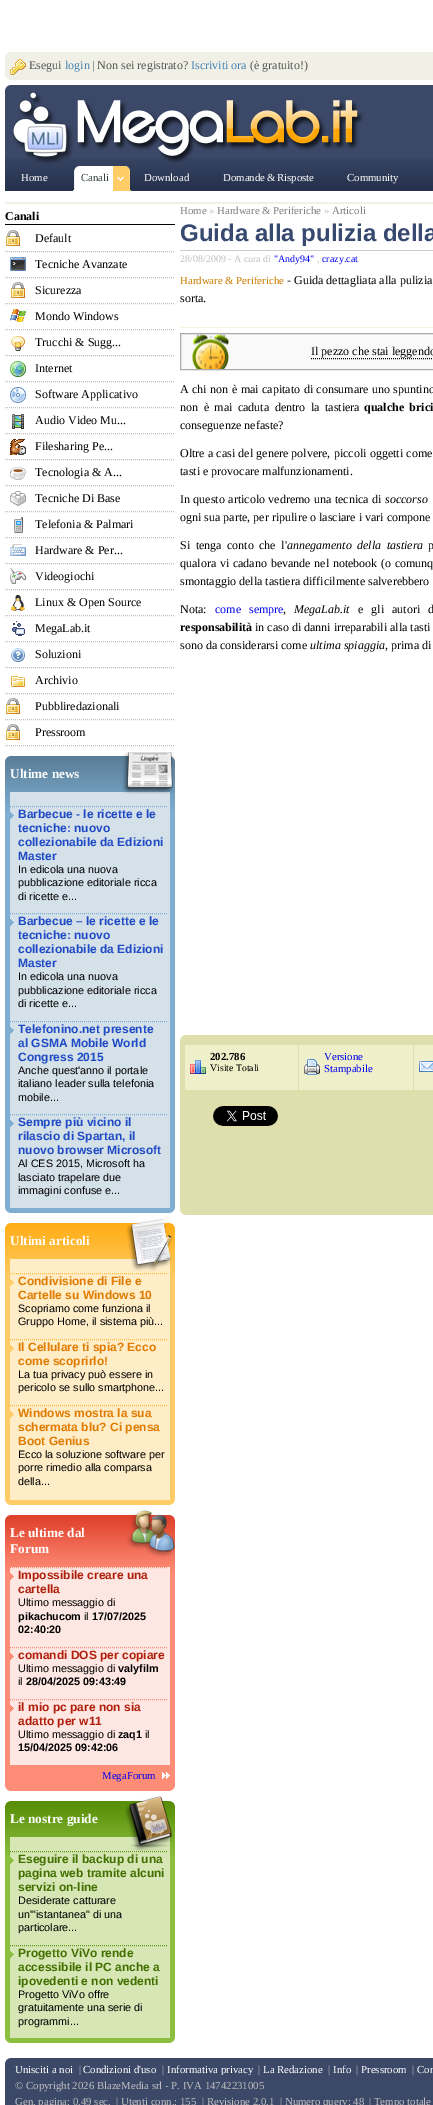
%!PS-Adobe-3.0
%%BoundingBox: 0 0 433 2105
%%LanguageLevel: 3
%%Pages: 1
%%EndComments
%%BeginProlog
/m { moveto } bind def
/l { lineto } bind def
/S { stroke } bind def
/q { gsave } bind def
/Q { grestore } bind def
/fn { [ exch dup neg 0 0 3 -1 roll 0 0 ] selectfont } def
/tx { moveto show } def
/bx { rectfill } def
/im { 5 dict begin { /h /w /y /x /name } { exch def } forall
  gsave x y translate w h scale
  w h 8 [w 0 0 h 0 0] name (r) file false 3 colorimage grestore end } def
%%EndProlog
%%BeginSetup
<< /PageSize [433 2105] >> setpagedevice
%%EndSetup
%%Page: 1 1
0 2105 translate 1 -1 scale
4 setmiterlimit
1 setgray
0 0 433 2105 bx
0.941 0.941 0.906 setrgbcolor
5 52 428 28 bx
(image0.raw) 5 52 5 5 im
(image1.raw) 10 59 16 16 im
/LiberationSerif-Regular 12 fn
0.333 setgray
(Esegui) 29 69 tx
0.275 0.51 0.706 setrgbcolor
(login) 65 69 tx
0.333 setgray
(| Non sei registrato?) 92 69 tx
0.275 0.51 0.706 setrgbcolor
(Iscriviti ora) 191 69 tx
0.333 setgray
(\(è gratuito!\)) 250 69 tx
(image2.raw) 5 75 5 5 im
0.231 0.282 0.404 setrgbcolor
5 85 428 73 bx
(image3.raw) 5 158 428 33 im
(image4.raw) 5 85 6 5 im
(image5.raw) 13 92 351 72 im
/LiberationSerif-Regular 10.8 fn
1 setgray
(Home) 21 181 tx
73 166 40 25 bx
(image6.raw) 73 166 6 24 im
0.216 0.267 0.263 setrgbcolor
(Canali) 81 181 tx
(image7.raw) 113 166 18 25 im
1 setgray
(Download) 144 181 tx
223 181 m -1 0 32 (Domande & Risposte) widthshow
(Community) 347 181 tx
0.941 0.941 0.906 setrgbcolor
5 202 428 2 bx
0 setgray
5 224 170 1 bx
/LiberationSerif-Bold 12 fn
(Canali) 5 220 tx
(image8.raw) 6 230 14 16 im
0.753 setgray
[1 1] 0 setdash
5 251.5 m 175 251.5 l S
/LiberationSerif-Regular 12 fn
0 setgray
(Default) 35 242 tx
(image9.raw) 10 257 16 14 im
0.753 setgray
5 277.5 m 175 277.5 l S
0 setgray
(Tecniche Avanzate) 35 268 tx
(image8.raw) 11 282 14 16 im
0.753 setgray
5 303.5 m 175 303.5 l S
0 setgray
(Sicurezza) 35 294 tx
(image10.raw) 10 309 16 13 im
0.753 setgray
5 329.5 m 175 329.5 l S
0 setgray
(Mondo Windows) 35 320 tx
(image11.raw) 11 336 14 15 im
0.753 setgray
5 355.5 m 175 355.5 l S
0 setgray
(Trucchi & Sugg...) 35 346 tx
(image12.raw) 10 361 16 16 im
0.753 setgray
5 381.5 m 175 381.5 l S
0 setgray
(Internet) 35 372 tx
(image13.raw) 10 387 16 16 im
0.753 setgray
5 407.5 m 175 407.5 l S
0 setgray
(Software Applicativo) 35 398 tx
(image14.raw) 12 414 12 15 im
0.753 setgray
5 433.5 m 175 433.5 l S
0 setgray
(Audio Video Mu...) 35 424 tx
(image15.raw) 10 439 16 16 im
0.753 setgray
5 459.5 m 175 459.5 l S
0 setgray
(Filesharing Pe...) 35 450 tx
(image16.raw) 10 467 16 13 im
0.753 setgray
5 485.5 m 175 485.5 l S
0 setgray
(Tecnologia & A...) 35 476 tx
(image17.raw) 10 491 16 15 im
0.753 setgray
5 511.5 m 175 511.5 l S
0 setgray
(Tecniche Di Base) 35 502 tx
(image18.raw) 14 517 9 16 im
0.753 setgray
5 537.5 m 175 537.5 l S
0 setgray
(Telefonia & Palmari) 35 528 tx
(image19.raw) 10 544 16 12 im
0.753 setgray
5 563.5 m 175 563.5 l S
0 setgray
(Hardware & Per...) 35 554 tx
(image20.raw) 10 568 16 16 im
0.753 setgray
5 589.5 m 175 589.5 l S
0 setgray
(Videogiochi) 35 580 tx
(image21.raw) 11 595 14 16 im
0.753 setgray
5 615.5 m 175 615.5 l S
0 setgray
(Linux & Open Source) 35 606 tx
(image22.raw) 12 621 13 15 im
0.753 setgray
5 641.5 m 175 641.5 l S
0 setgray
(MegaLab.it) 35 632 tx
(image23.raw) 11 648 14 14 im
0.753 setgray
5 667.5 m 175 667.5 l S
0 setgray
(Soluzioni) 35 658 tx
(image24.raw) 11 676 14 11 im
0.753 setgray
5 693.5 m 175 693.5 l S
0 setgray
(Archivio) 35 684 tx
(image8.raw) 6 698 14 16 im
0.753 setgray
5 719.5 m 175 719.5 l S
0 setgray
(Pubbliredazionali) 35 710 tx
(image8.raw) 6 724 14 16 im
0.753 setgray
5 745.5 m 175 745.5 l S
0 setgray
(Pressroom) 35 736 tx
0.494 0.686 0.827 setrgbcolor
5 811 170 402 bx
(image25.raw) 5 756 170 55 im
(image28.raw) 171 756 4 5 im
0.835 0.882 0.914 setrgbcolor
10 792 160 416 bx
(image26.raw) 122 752 52 42 im
(image27.raw) 5 756 5 5 im
/LiberationSerif-Bold 13.25 fn
1 setgray
(Ultime news) 10 778 tx
0.494 0.686 0.827 setrgbcolor
10 806.5 m 168 806.5 l S
(image29.raw) 10 812 4 7 im
/LiberationSans-Bold 12 fn
0.122 0.29 0.773 setrgbcolor
(Barbecue - le ricette e le) 18 818 tx
(tecniche: nuovo) 18 832 tx
(collezionabile da Edizioni) 18 846 tx
(Master) 18 860 tx
/LiberationSans-Regular 10.8 fn
0 setgray
(In edicola una nuova) 18 873 tx
(pubblicazione editoriale ricca) 18 886 tx
(di ricette e...) 18 900 tx
0.494 0.686 0.827 setrgbcolor
10 913.5 m 168 913.5 l S
(image29.raw) 10 919 4 7 im
/LiberationSans-Bold 12 fn
0.122 0.29 0.773 setrgbcolor
(Barbecue – le ricette e le) 18 925 tx
(tecniche: nuovo) 18 939 tx
(collezionabile da Edizioni) 18 953 tx
(Master) 18 967 tx
/LiberationSans-Regular 10.8 fn
0 setgray
(In edicola una nuova) 18 980 tx
(pubblicazione editoriale ricca) 18 994 tx
(di ricette e...) 18 1007 tx
0.494 0.686 0.827 setrgbcolor
10 1021.5 m 168 1021.5 l S
(image29.raw) 10 1027 4 7 im
/LiberationSans-Bold 12 fn
0.122 0.29 0.773 setrgbcolor
(Telefonino.net presente) 18 1033 tx
(al GSMA Mobile World) 18 1047 tx
(Congress 2015) 18 1061 tx
/LiberationSans-Regular 10.8 fn
0 setgray
(Anche quest'anno il portale) 18 1074 tx
(italiano leader sulla telefonia) 18 1087 tx
(mobile...) 18 1101 tx
0.494 0.686 0.827 setrgbcolor
10 1114.5 m 168 1114.5 l S
(image29.raw) 10 1120 4 7 im
/LiberationSans-Bold 12 fn
0.122 0.29 0.773 setrgbcolor
(Sempre più vicino il) 18 1126 tx
(rilascio di Spartan, il) 18 1140 tx
(nuovo browser Microsoft) 18 1154 tx
/LiberationSans-Regular 10.8 fn
0 setgray
(Al CES 2015, Microsoft ha) 18 1167 tx
(lasciato trapelare due) 18 1181 tx
(immagini confuse e...) 18 1194 tx
(image30.raw) 5 1208 5 5 im
(image31.raw) 170 1208 5 5 im
1 0.8 0.4 setrgbcolor
5 1280 170 225 bx
(image32.raw) 5 1223 170 57 im
(image35.raw) 169 1223 6 5 im
1 0.929 0.784 setrgbcolor
10 1259 160 241 bx
(image33.raw) 126 1219 46 53 im
(image34.raw) 5 1223 6 5 im
/LiberationSerif-Bold 13.25 fn
1 setgray
(Ultimi articoli) 10 1245 tx
1 0.729 0.212 setrgbcolor
10 1273.5 m 168 1273.5 l S
(image36.raw) 10 1279 4 7 im
/LiberationSans-Bold 12 fn
0.875 0.482 0 setrgbcolor
(Condivisione di File e) 18 1285 tx
(Cartelle su Windows 10) 18 1299 tx
/LiberationSans-Regular 10.8 fn
0 setgray
(Scopriamo come funziona il) 18 1312 tx
(Gruppo Home, il sistema più...) 18 1325 tx
1 0.729 0.212 setrgbcolor
10 1339.5 m 168 1339.5 l S
(image36.raw) 10 1345 4 7 im
/LiberationSans-Bold 12 fn
0.875 0.482 0 setrgbcolor
(Il Cellulare ti spia? Ecco) 18 1351 tx
(come scoprirlo!) 18 1365 tx
/LiberationSans-Regular 10.8 fn
0 setgray
(La tua privacy può essere in) 18 1378 tx
(pericolo se sullo smartphone...) 18 1391 tx
1 0.729 0.212 setrgbcolor
10 1405.5 m 168 1405.5 l S
(image36.raw) 10 1411 4 7 im
/LiberationSans-Bold 12 fn
0.875 0.482 0 setrgbcolor
(Windows mostra la sua) 18 1417 tx
(schermata blu? Ci pensa) 18 1431 tx
(Boot Genius) 18 1445 tx
/LiberationSans-Regular 10.8 fn
0 setgray
(Ecco la soluzione software per) 18 1458 tx
(porre rimedio alla comparsa) 18 1471 tx
(della...) 18 1485 tx
(image37.raw) 5 1500 5 5 im
(image38.raw) 170 1500 5 5 im
0.996 0.553 0.467 setrgbcolor
5 1572 170 219 bx
(image39.raw) 5 1515 170 57 im
(image42.raw) 169 1515 6 5 im
(image40.raw) 127 1510 48 47 im
(image41.raw) 5 1515 6 5 im
/LiberationSerif-Bold 13.25 fn
1 setgray
(Le ultime dal) 10 1537 tx
(Forum) 10 1553 tx
0.996 0.906 0.886 setrgbcolor
10 1567 160 198 bx
0.996 0.553 0.467 setrgbcolor
10 1567.5 m 168 1567.5 l S
(image43.raw) 10 1573 4 7 im
/LiberationSans-Bold 12 fn
0.686 0.118 0.039 setrgbcolor
(Impossibile creare una) 18 1579 tx
(cartella) 18 1593 tx
/LiberationSans-Regular 10.8 fn
0 setgray
(Ultimo messaggio di) 18 1606 tx
/LiberationSans-Bold 10.8 fn
(pikachucom) 18 1620 tx
/LiberationSans-Regular 10.8 fn
(il) 84 1620 tx
/LiberationSans-Bold 10.8 fn
(17/07/2025) 92 1620 tx
(02:40:20) 18 1633 tx
0.996 0.553 0.467 setrgbcolor
10 1647.5 m 168 1647.5 l S
(image43.raw) 10 1653 4 7 im
/LiberationSans-Bold 12 fn
0.686 0.118 0.039 setrgbcolor
(comandi DOS per copiare) 18 1659 tx
/LiberationSans-Regular 10.8 fn
0 setgray
(Ultimo messaggio di) 18 1672 tx
/LiberationSans-Bold 10.8 fn
(valyfilm) 118 1672 tx
/LiberationSans-Regular 10.8 fn
(il) 18 1685 tx
/LiberationSans-Bold 10.8 fn
(28/04/2025 09:43:49) 26 1685 tx
0.996 0.553 0.467 setrgbcolor
10 1699.5 m 168 1699.5 l S
(image43.raw) 10 1705 4 7 im
/LiberationSans-Bold 12 fn
0.686 0.118 0.039 setrgbcolor
(il mio pc pare non sia) 18 1711 tx
(adatto per w11) 18 1725 tx
/LiberationSans-Regular 10.8 fn
0 setgray
(Ultimo messaggio di) 18 1738 tx
/LiberationSans-Bold 10.8 fn
(zaq1) 118 1738 tx
/LiberationSans-Regular 10.8 fn
(il) 145 1738 tx
/LiberationSans-Bold 10.8 fn
(15/04/2025 09:42:06) 18 1751 tx
/LiberationSerif-Regular 10.8 fn
0 0 0.933 setrgbcolor
(MegaForum) 102 1779 tx
(image44.raw) 162 1772 8 7 im
(image45.raw) 5 1786 5 5 im
(image46.raw) 170 1786 5 5 im
0.549 0.749 0.251 setrgbcolor
5 1856 170 187 bx
(image47.raw) 5 1801 170 55 im
(image50.raw) 169 1801 6 5 im
0.839 0.906 0.71 setrgbcolor
10 1837 160 201 bx
(image48.raw) 125 1796 48 55 im
(image49.raw) 5 1801 6 5 im
/LiberationSerif-Bold 13.25 fn
1 setgray
(Le nostre guide) 10 1823 tx
0.384 0.592 0.071 setrgbcolor
10 1851.5 m 168 1851.5 l S
(image51.raw) 10 1857 4 7 im
/LiberationSans-Bold 12 fn
0.259 0.435 0 setrgbcolor
(Eseguire il backup di una) 18 1863 tx
(pagina web tramite alcuni) 18 1877 tx
(servizi on-line) 18 1891 tx
/LiberationSans-Regular 10.8 fn
0 setgray
(Desiderate catturare) 18 1904 tx
(un'"istantanea" di una) 18 1918 tx
(particolare...) 18 1931 tx
0.384 0.592 0.071 setrgbcolor
10 1945.5 m 168 1945.5 l S
(image51.raw) 10 1951 4 7 im
/LiberationSans-Bold 12 fn
0.259 0.435 0 setrgbcolor
(Progetto ViVo rende) 18 1957 tx
(accessibile il PC anche a) 18 1971 tx
(ipovedenti e non vedenti) 18 1985 tx
/LiberationSans-Regular 10.8 fn
0 setgray
(Progetto ViVo offre) 18 1998 tx
(gratuitamente una serie di) 18 2011 tx
(programmi...) 18 2025 tx
(image52.raw) 5 2038 5 5 im
(image53.raw) 170 2038 5 5 im
/LiberationSerif-Regular 10.8 fn
0.502 setgray
(Home) 180 214 tx
0.753 setgray
(») 209 214 tx
0.502 setgray
(Hardware & Periferiche) 217 214 tx
0.753 setgray
(») 324 214 tx
0.502 setgray
(Articoli) 332 214 tx
0.8 setgray
180 250 253 1 bx
/LiberationSans-Bold 24 fn
0.216 0.286 0.435 setrgbcolor
(Guida alla pulizia della) 180 241 tx
/LiberationSerif-Regular 10 fn
0.753 setgray
(28/08/2009 - A cura di) 180 262 tx
0 0 0.933 setrgbcolor
("Andy94") 274 262 tx
0.753 setgray
(,) 317 262 tx
0 0 0.933 setrgbcolor
(crazy.cat) 322 262 tx
0.753 setgray
(.) 357 262 tx
0.961 0.961 0.863 setrgbcolor
180 327 253 1 bx
/LiberationSerif-Regular 10.8 fn
0.808 0.486 0 setrgbcolor
(Hardware & Periferiche) 180 284 tx
/LiberationSerif-Regular 12 fn
0 setgray
(- Guida dettagliata alla pulizia) 287 284 tx
(sorta.) 180 302 tx
0.976 setgray
181 334 252 35 bx
(image54.raw) 192 334 37 35 im
0.667 setgray
[] 0 setdash
180.5 333.5 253 36 rectstroke
0 setgray
(Il pezzo che stai leggendo) 311 355 tx
[1 1] 0 setdash
311 358.5 m 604 358.5 l S
180 393 m 0.5 0 32 (A chi non è mai capitato di consumare uno spuntino) widthshow
180 411 m 2.5 0 32 (non è mai caduta dentro la tastiera) widthshow
/LiberationSerif-Bold 12 fn
364 411 m 2.5 0 32 (qualche brici) widthshow
/LiberationSerif-Regular 12 fn
(conseguenze nefaste?) 180 429 tx
180 457 m 0.25 0 32 (Oltre a casi del genere polvere, piccoli oggetti come) widthshow
(tasti e provocare malfunzionamenti.) 180 475 tx
180 503 m 0.5 0 32 (In questo articolo vedremo una tecnica di) widthshow
/LiberationSerif-Italic 12 fn
(soccorso) 385 503 tx
/LiberationSerif-Regular 12 fn
(ogni sua parte, per ripulire o lasciare i vari compone) 180 521 tx
180 549 m 2.5 0 32 (Si tenga conto che l') widthshow
/LiberationSerif-Italic 12 fn
287 549 m 2.5 0 32 (annegamento della tastiera) widthshow
/LiberationSerif-Regular 12 fn
428 549 m 2.5 0 32 (p) widthshow
180 567 m 0.75 0 32 (qualora vi cadano bevande nel notebook \(o comunq) widthshow
(smontaggio della tastiera difficilmente salverebbero) 180 585 tx
(Nota:) 180 613 tx
0 0 0.933 setrgbcolor
215 613 m 5 0 32 (come sempre) widthshow
0 setgray
(,) 283 613 tx
/LiberationSerif-Italic 12 fn
(MegaLab.it) 294 613 tx
/LiberationSerif-Regular 12 fn
358 613 m 5 0 32 (e gli autori d) widthshow
/LiberationSerif-Bold 12 fn
(responsabilità) 180 631 tx
/LiberationSerif-Regular 12 fn
(in caso di danni irreparabili alla tasti) 255 631 tx
(sono da considerarsi come) 180 649 tx
/LiberationSerif-Italic 12 fn
(ultima spiaggia) 310 649 tx
/LiberationSerif-Regular 12 fn
(, prima di) 385 649 tx
0.875 0.875 0.682 setrgbcolor
180 1035 253 180 bx
(image55.raw) 180 1035 5 5 im
0.937 0.937 0.792 setrgbcolor
185 1045 113 45 bx
(image56.raw) 190 1060 16 14 im
/LiberationSerif-Bold 10.8 fn
0 setgray
(202.786) 210 1060 tx
/LiberationSerif-Regular 9.75 fn
(Visite Totali) 210 1071 tx
0.937 0.937 0.792 setrgbcolor
299 1045 114 45 bx
(image57.raw) 304 1059 16 16 im
/LiberationSerif-Regular 10.8 fn
0 0 0.933 setrgbcolor
(Versione) 324 1060 tx
(Stampabile) 324 1072 tx
0.937 0.937 0.792 setrgbcolor
414 1045 19 45 bx
(image58.raw) 419 1061 14 11 im
(image59.raw) 213 1106 65 20 im
(image60.raw) 180 1210 5 5 im
0.231 0.282 0.404 setrgbcolor
5 2058 428 47 bx
(image4.raw) 5 2058 6 5 im
1 setgray
(Unisciti a noi) 15 2073 tx
0.753 setgray
(|) 79 2073 tx
1 setgray
(Condizioni d'uso) 83 2073 tx
0.753 setgray
(|) 162 2073 tx
q
15 2063 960 12 rectclip
1 setgray
(Informativa privacy) 167 2073 tx
Q
(|) 258 2073 tx
1 setgray
(La Redazione) 263 2073 tx
0.753 setgray
(|) 328 2073 tx
1 setgray
(Info) 333 2073 tx
0.753 setgray
(|) 356 2073 tx
1 setgray
(Pressroom) 361 2073 tx
0.753 setgray
(|) 412 2073 tx
1 setgray
(Con) 417 2073 tx
0.753 setgray
(© Copyright 2026 BlazeMedia srl - P. IVA 14742231005) 15 2089 tx
(Gen. pagina: 0.49 sec.) 15 2105 tx
(| Utenti conn.: 155) 116 2105 tx
(| Revisione 2.0.1) 202 2105 tx
(| Numero query: 48) 280 2105 tx
(| Tempo totale) 369 2105 tx
showpage
%%EOF
